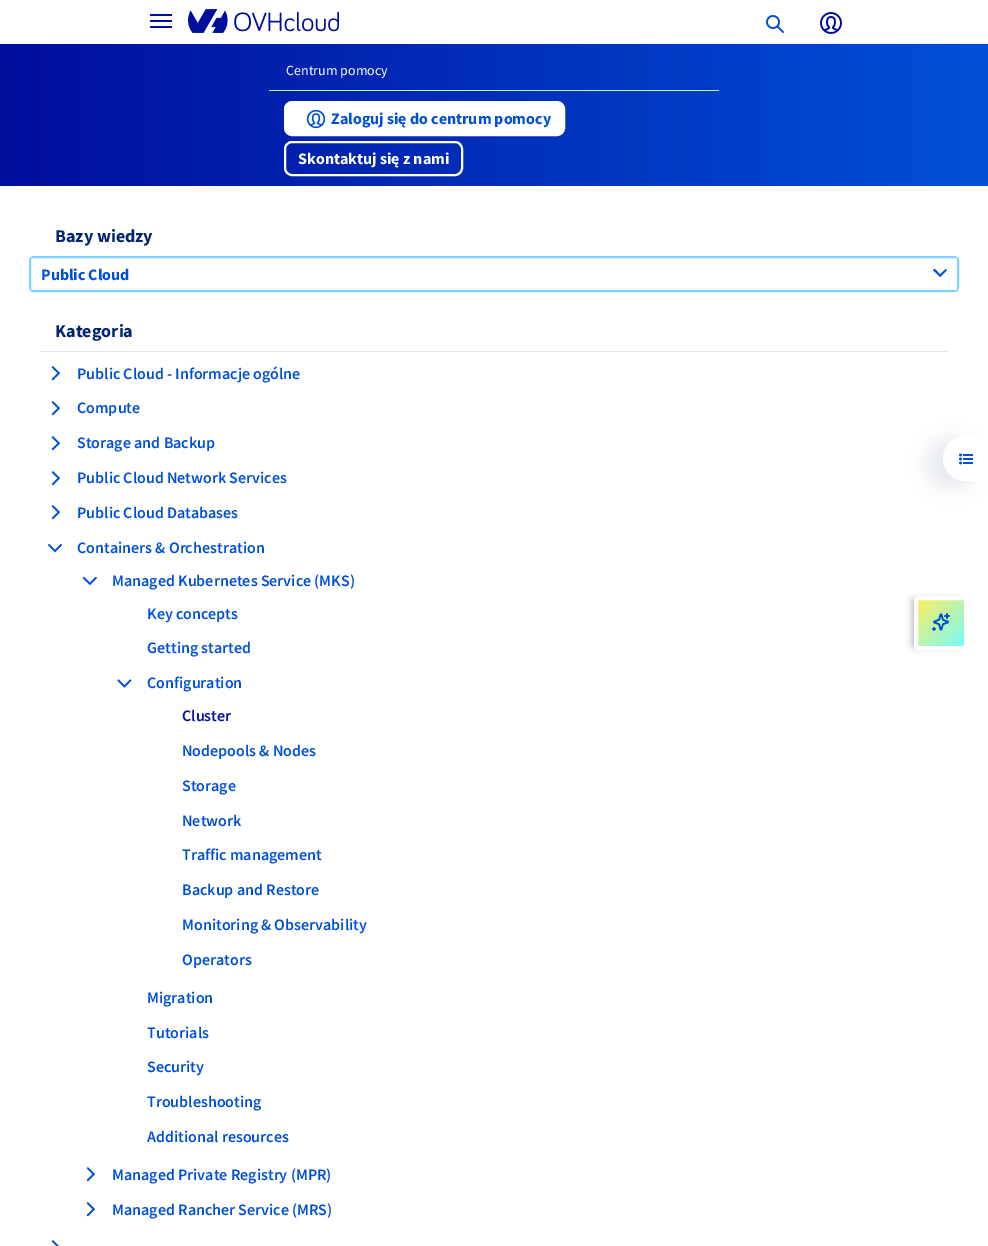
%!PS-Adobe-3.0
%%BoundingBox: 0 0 988 1246
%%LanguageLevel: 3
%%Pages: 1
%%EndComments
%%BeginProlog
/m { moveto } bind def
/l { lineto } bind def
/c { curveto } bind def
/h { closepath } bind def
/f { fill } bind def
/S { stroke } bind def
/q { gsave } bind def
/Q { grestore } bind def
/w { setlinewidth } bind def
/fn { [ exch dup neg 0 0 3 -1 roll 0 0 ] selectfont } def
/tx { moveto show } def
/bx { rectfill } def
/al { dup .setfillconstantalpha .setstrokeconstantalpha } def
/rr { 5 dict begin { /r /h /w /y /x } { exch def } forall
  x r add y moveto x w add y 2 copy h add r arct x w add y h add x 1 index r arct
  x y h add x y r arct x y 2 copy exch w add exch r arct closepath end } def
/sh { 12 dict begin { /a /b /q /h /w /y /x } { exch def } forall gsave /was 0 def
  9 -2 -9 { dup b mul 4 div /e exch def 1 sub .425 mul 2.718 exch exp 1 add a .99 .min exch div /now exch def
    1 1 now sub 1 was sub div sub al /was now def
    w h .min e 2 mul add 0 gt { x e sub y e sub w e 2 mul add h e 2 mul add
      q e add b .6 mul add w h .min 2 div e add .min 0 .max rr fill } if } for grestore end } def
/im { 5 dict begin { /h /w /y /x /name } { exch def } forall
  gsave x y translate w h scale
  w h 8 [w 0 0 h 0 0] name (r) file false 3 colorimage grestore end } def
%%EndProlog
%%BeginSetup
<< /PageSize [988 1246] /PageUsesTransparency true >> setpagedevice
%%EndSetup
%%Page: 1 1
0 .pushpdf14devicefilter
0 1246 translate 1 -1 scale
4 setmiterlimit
1 setgray
0 0 988 1246 bx
0 0.055 0.612 setrgbcolor
150 14 22 2 1 rr f
150 20 22 2 1 rr f
150 26 22 2 1 rr f
(image0.raw) 188 9 151 24 im
(image1.raw) 766 15 18 18 im
(image2.raw) 820 12 22 22 im
0 0.051 0.122 setrgbcolor
914 601 44 44 0 4 0.45 sh
q 918 600 m 964 600 l 964 646 l 918 646 l h clip newpath
<< /ShadingType 2 /ColorSpace /DeviceRGB /Coords [918 600 964 646] /Extend [true true] /Function << /FunctionType 2 /Domain [0 1] /C0 [0.992 0.937 0.38] /C1 [0.467 0.984 0.984] /N 1 >> >> shfill Q
1 setgray
4 w
916 598 50 50 3 rr S
(image3.raw) 932 613 18 18 im
q 0 44 m 988 44 l 988 186 l 0 186 l h clip newpath
<< /ShadingType 2 /ColorSpace /DeviceRGB /Coords [0 93 988 93] /Extend [true true] /Function << /FunctionType 2 /Domain [0 1] /C0 [0 0.055 0.612] /C1 [0 0.314 0.843] /N 1 >> >> shfill Q
0.745 0.945 1 setrgbcolor
269 90 450 1 bx
/SourceSansPro-Regular 14 fn
1 setgray
(Centrum pomocy) 286 75 tx
285 102 279 33 7 rr q f Q
2 w
S
(image4.raw) 306 109 20 20 im
/SourceSansPro-Bold 16 fn
0 0.314 0.843 setrgbcolor
(Zaloguj się do centrum pomocy) 331 124 tx
1 setgray
285 142 177 33 7 rr S
(Skontaktuj się z nami) 298 164 tx
/SourceSansPro-Bold 18 fn
0 0.145 0.443 setrgbcolor
(Bazy wiedzy) 55 242 tx
0.478 0.831 0.992 setrgbcolor
1 w
29.5 256.5 929 35 4.5 rr S
1 setgray
30.5 257.5 m 957.5 257.5 l 957.5 290.5 l 30.5 290.5 l h q f Q
0.478 0.831 0.992 setrgbcolor
S
/SourceSansPro-Bold 16 fn
0 0.314 0.843 setrgbcolor
(Public Cloud) 41 280 tx
945 269.5 m 940 274.5 l 939 273.5 935 268.5 934 269 c 932 270 935.5 272.5 935.5 272.5 c 940 277 l 941 276 947.5 270.5 946.5 269.5 c 946 269 945.5 269 945 269.5 c h f
0.902 setgray
40 351 908 1 bx
/SourceSansPro-Bold 18 fn
0 0.145 0.443 setrgbcolor
(Kategoria) 55 337 tx
(image5.raw) 51 366 10 15 im
/SourceSansPro-SemiBold 16 fn
0 0.314 0.843 setrgbcolor
(Public Cloud - Informacje ogólne) 77 379 tx
(image5.raw) 51 401 10 15 im
(Compute) 77 413 tx
(image5.raw) 51 436 10 15 im
(Storage and Backup) 77 448 tx
(image5.raw) 51 471 10 15 im
(Public Cloud Network Services) 77 483 tx
(image5.raw) 51 505 10 15 im
(Public Cloud Databases) 77 518 tx
(image6.raw) 48 544 14 9 im
(Containers & Orchestration) 77 553 tx
(image7.raw) 82 576 15 10 im
(Managed Kubernetes Service \(MKS\)) 112 586 tx
(Key concepts) 147 619 tx
(Getting started) 147 653 tx
(image8.raw) 117 679 15 9 im
(Configuration) 147 688 tx
0 0.055 0.612 setrgbcolor
(Cluster) 182 721 tx
0 0.314 0.843 setrgbcolor
(Nodepools & Nodes) 182 756 tx
(Storage) 182 791 tx
(Network) 182 826 tx
(Traffic management) 182 860 tx
(Backup and Restore) 182 895 tx
(Monitoring & Observability) 182 930 tx
(Operators) 182 965 tx
(Migration) 147 1003 tx
(Tutorials) 147 1038 tx
(Security) 147 1072 tx
(Troubleshooting) 147 1107 tx
(Additional resources) 147 1142 tx
(image5.raw) 86 1167 10 15 im
(Managed Private Registry \(MPR\)) 112 1180 tx
(image5.raw) 86 1202 10 15 im
(Managed Rancher Service \(MRS\)) 112 1215 tx
(image9.raw) 51 1240 8 6 im
0.012 0.106 0.306 setrgbcolor
929 441 45 45 22.5 10 0.1 sh
1 setgray
965.5 436 m 988 436 l 988 481 l 965.5 481 l 953 481 943 471 943 458.5 c 943 446 953 436 965.5 436 c h f
(image10.raw) 959 453 14 12 im
.poppdf14devicefilter showpage
%%EOF
